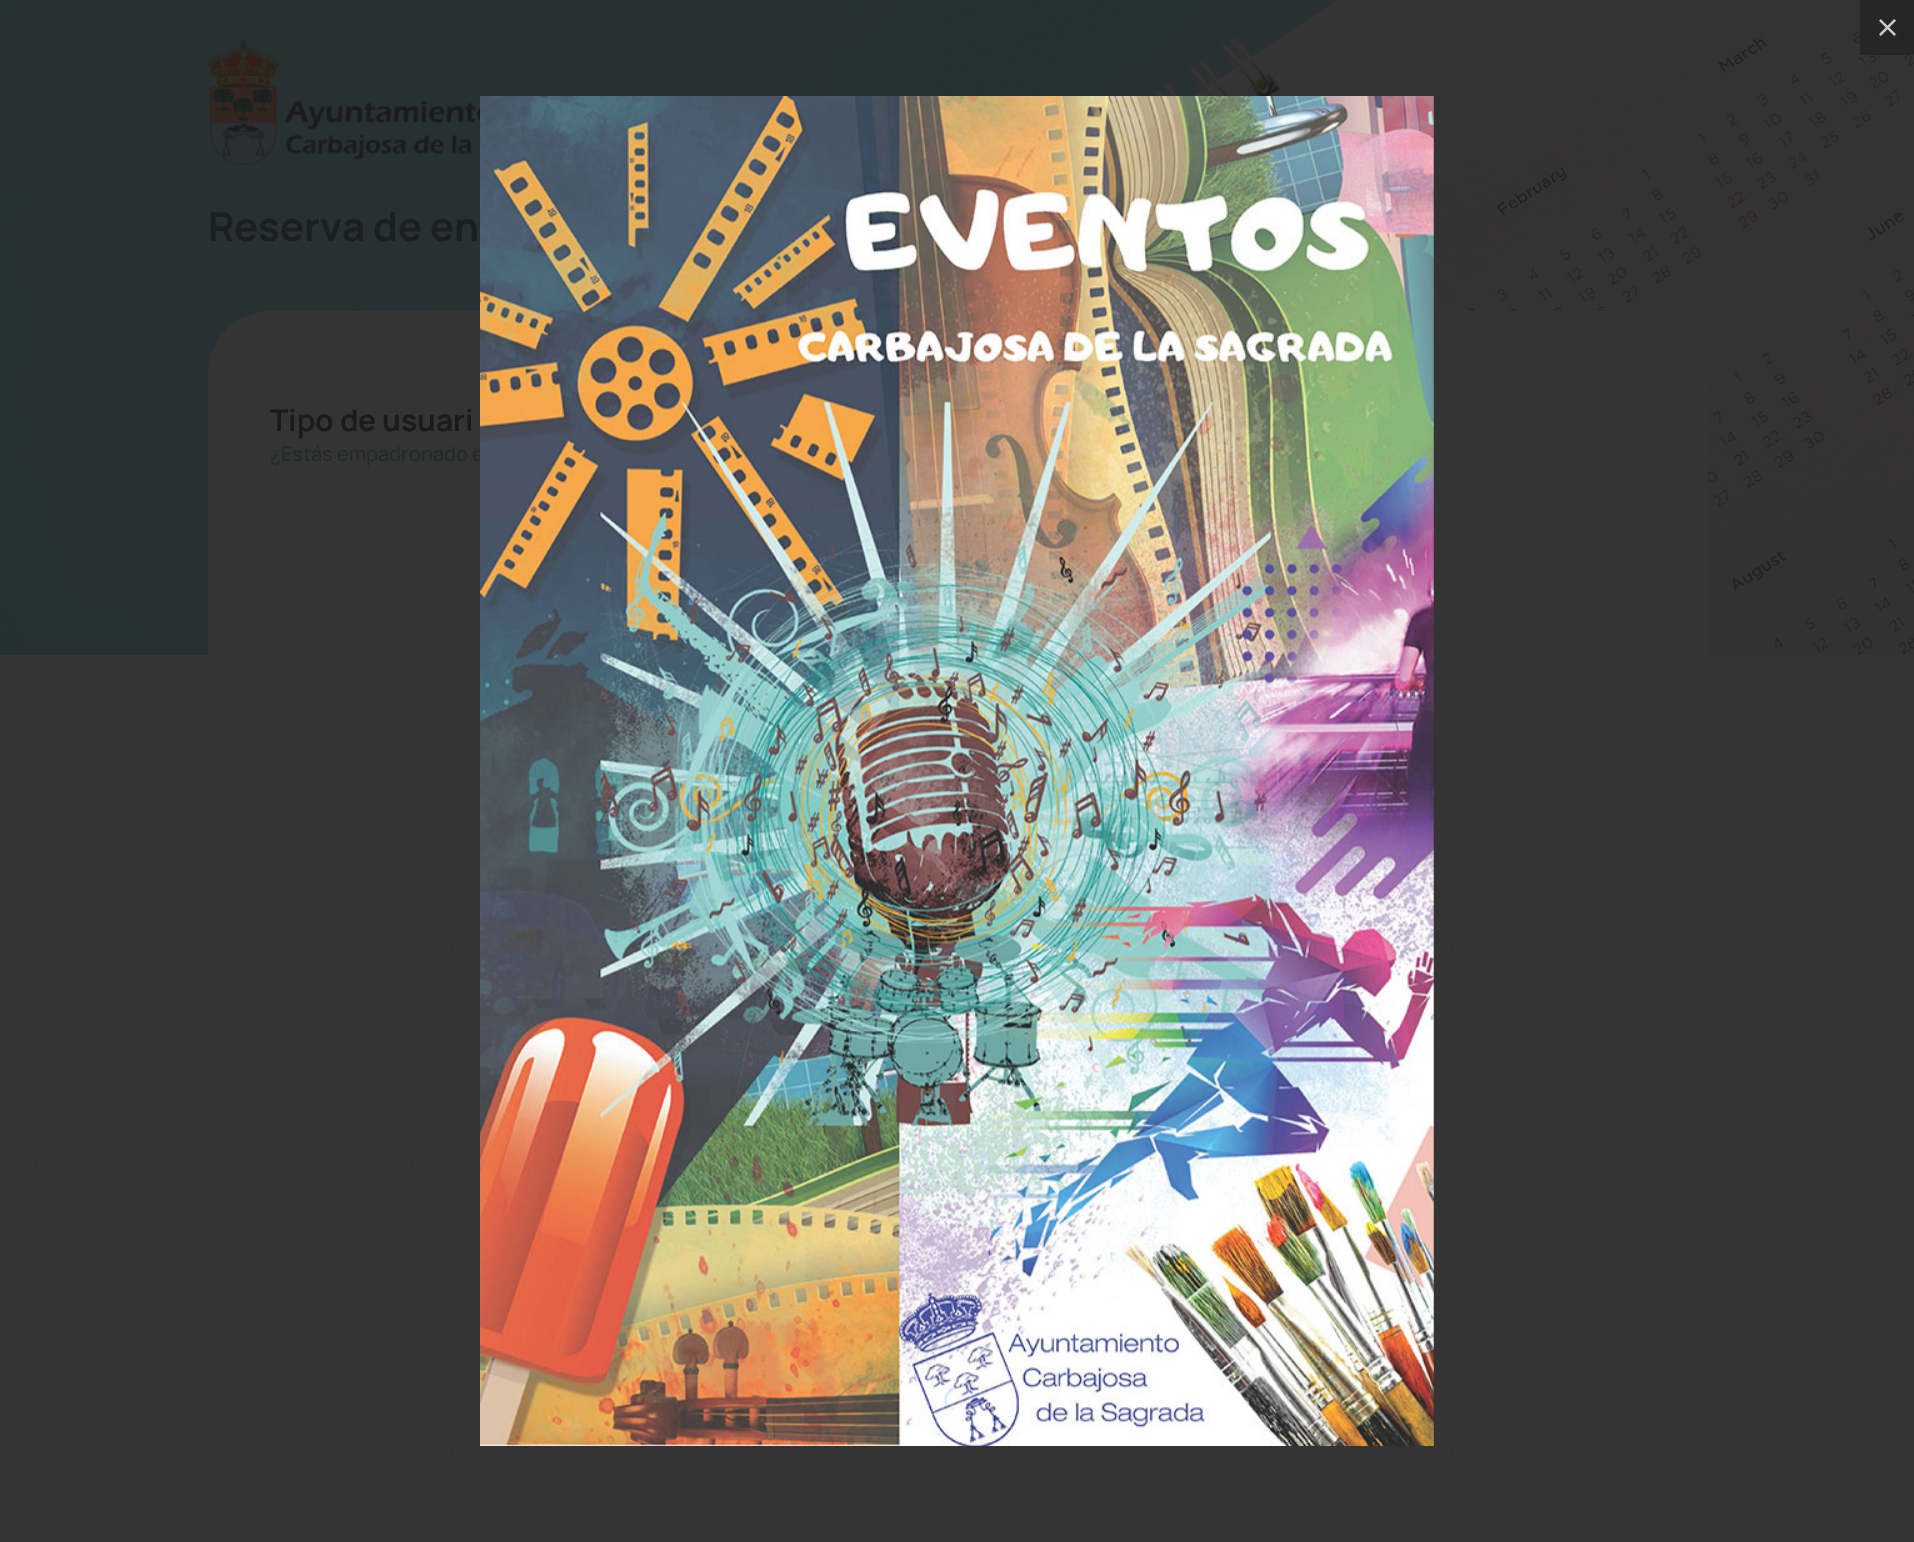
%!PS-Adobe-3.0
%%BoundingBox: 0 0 1914 1542
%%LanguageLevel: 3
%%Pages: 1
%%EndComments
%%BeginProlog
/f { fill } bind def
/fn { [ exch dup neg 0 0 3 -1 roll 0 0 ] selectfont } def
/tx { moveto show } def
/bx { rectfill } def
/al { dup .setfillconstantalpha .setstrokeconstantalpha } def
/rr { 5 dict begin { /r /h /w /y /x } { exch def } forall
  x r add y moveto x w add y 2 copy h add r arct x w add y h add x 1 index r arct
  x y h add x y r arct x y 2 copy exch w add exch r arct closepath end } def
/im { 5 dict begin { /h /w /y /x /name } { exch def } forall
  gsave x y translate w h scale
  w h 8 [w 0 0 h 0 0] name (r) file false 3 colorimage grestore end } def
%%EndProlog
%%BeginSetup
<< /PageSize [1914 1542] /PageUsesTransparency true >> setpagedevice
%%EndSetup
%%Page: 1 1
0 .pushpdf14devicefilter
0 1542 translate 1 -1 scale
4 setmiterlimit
1 setgray
0 0 1914 1542 bx
(image0.raw) 0 655 1914 887 im
(image1.raw) 0 0 1914 655 im
(image2.raw) 207 40 273 125 im
/Manrope-Bold 40 fn
0.106 0.122 0.133 setrgbcolor
(Reserva de en) 208 241 tx
0.204 setgray
208 311 1500 438 63 rr f
/Manrope-Bold 30 fn
0.106 setgray
(Tipo de usuari) 270 431 tx
/Manrope-Medium 20 fn
0.137 0.165 0.169 setrgbcolor
(¿Estás empadronado e) 270 461 tx
0.6 al
0.118 setgray
1860 0 54 55 bx
1 al
(image3.raw) 1879 19 17 17 im
(image4.raw) 480 96 954 1350 im
.poppdf14devicefilter showpage
%%EOF
